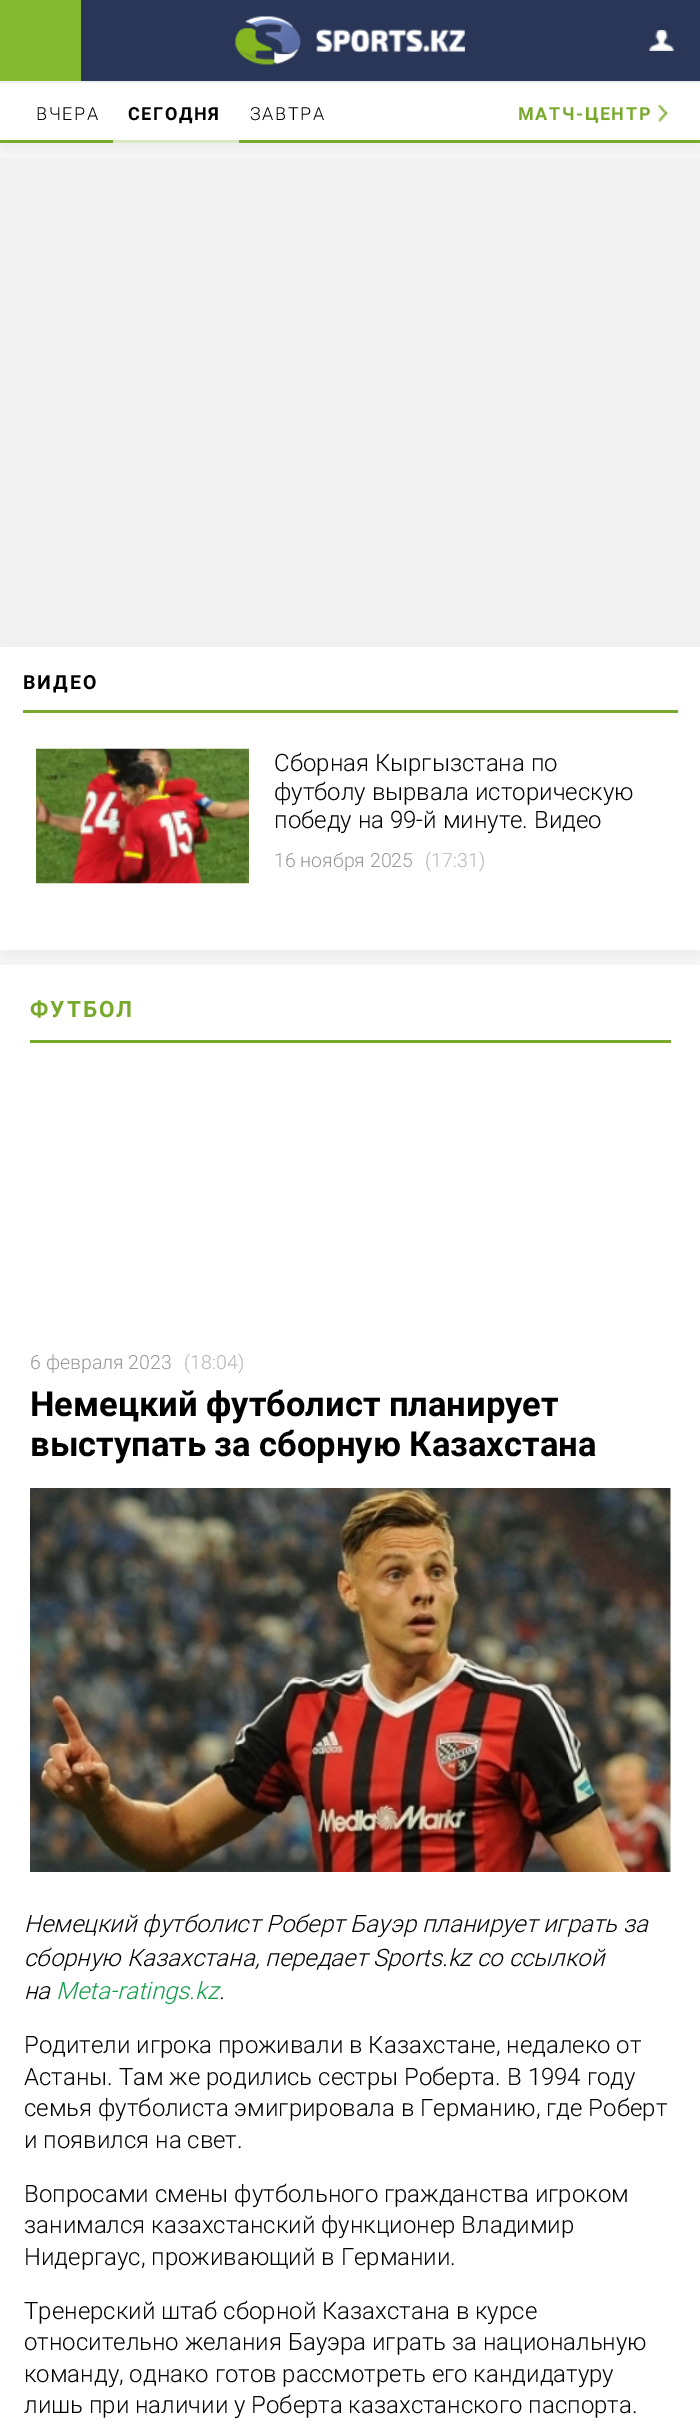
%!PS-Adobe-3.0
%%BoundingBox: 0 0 700 2432
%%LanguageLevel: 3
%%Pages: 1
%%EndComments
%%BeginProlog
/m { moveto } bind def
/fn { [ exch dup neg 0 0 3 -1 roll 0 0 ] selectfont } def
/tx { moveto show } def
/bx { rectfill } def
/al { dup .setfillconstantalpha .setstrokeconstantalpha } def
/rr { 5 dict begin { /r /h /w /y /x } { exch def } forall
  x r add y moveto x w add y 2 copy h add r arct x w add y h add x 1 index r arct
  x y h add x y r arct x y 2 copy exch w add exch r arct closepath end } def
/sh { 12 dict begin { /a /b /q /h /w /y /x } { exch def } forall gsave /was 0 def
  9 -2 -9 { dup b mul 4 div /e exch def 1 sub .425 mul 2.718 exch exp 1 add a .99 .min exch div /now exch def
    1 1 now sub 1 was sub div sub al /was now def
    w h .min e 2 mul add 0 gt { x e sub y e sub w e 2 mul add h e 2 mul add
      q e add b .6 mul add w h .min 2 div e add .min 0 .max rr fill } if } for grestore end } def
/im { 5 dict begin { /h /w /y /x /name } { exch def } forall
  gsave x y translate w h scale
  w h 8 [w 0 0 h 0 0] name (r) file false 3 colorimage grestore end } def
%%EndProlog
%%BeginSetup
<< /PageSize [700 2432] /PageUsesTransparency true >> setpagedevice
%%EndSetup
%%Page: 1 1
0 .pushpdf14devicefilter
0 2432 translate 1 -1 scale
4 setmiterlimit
0.976 setgray
0 0 700 2432 bx
0.949 setgray
0 81 700 2 bx
0 setgray
0 90 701 60 0 10 0.05 sh
0.522 0.729 0.2 setrgbcolor
0 0 81 81 bx
0.161 0.212 0.341 setrgbcolor
81 0 619 81 bx
(image0.raw) 235 16 230 49 im
(image1.raw) 648 30 27 21 im
1 setgray
0 83 700 57 bx
0.471 0.663 0.173 setrgbcolor
0 140 700 3 bx
/Roboto-Light 18 fn
0 setgray
36 120 m 1.6 0 (ВЧЕРА) ashow
0.855 0.91 0.776 setrgbcolor
113 140 126 3 bx
/Roboto-Bold 18 fn
0 setgray
128 120 m 1.6 0 (СЕГОДНЯ) ashow
/Roboto-Light 18 fn
250 120 m 1.6 0 (ЗАВТРА) ashow
(image2.raw) 658 105 10 17 im
/Roboto-Bold 18 fn
0.471 0.663 0.173 setrgbcolor
518 120 m 1.6 0 (МАТЧ-ЦЕНТР) ashow
0.949 setgray
0 158 700 489 bx
0 setgray
0 654 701 303 0 10 0.05 sh
1 setgray
0 647 700 303 bx
0.471 0.663 0.173 setrgbcolor
23 710 655 3 bx
/Roboto-Bold 19.5 fn
0 setgray
23 689 m 2 0 (ВИДЕО) ashow
(image3.raw) 36 748 213 136 im
/Roboto-Light 24 fn
(Сборная Кыргызстана по) 274 771 tx
(футболу вырвала историческую) 274 800 tx
(победу на 99-й минуте. Видео) 274 828 tx
/Roboto-Light 19.5 fn
0.6 0.596 0.596 setrgbcolor
(16 ноября 2025) 274 867 tx
0.702 setgray
(\(17:31\)) 425 867 tx
1 setgray
0 965 700 1467 bx
0.471 0.663 0.173 setrgbcolor
30 1040 641 3 bx
/Roboto-Bold 22.5 fn
30 1017 m 2 0 (ФУТБОЛ) ashow
/Roboto-Light 19.5 fn
0.6 0.596 0.596 setrgbcolor
(6 февраля 2023) 30 1369 tx
0.702 setgray
(\(18:04\)) 184 1369 tx
/Roboto-Bold 34.5 fn
0 setgray
(Немецкий футболист планирует) 30 1416 tx
(выступать за сборную Казахстана) 30 1456 tx
(image4.raw) 30 1488 641 384 im
/Roboto-LightItalic 24 fn
(Немецкий футболист Роберт Бауэр планирует играть за) 24 1932 tx
(сборную Казахстана, передает Sports.kz со ссылкой) 24 1966 tx
(на) 24 1999 tx
0.067 0.612 0.29 setrgbcolor
(Meta-ratings.kz) 56 1999 tx
0 setgray
(.) 219 1999 tx
/Roboto-Light 24 fn
(Родители игрока проживали в Казахстане, недалеко от) 24 2053 tx
(Астаны. Там же родились сестры Роберта. В 1994 году) 24 2085 tx
(семья футболиста эмигрировала в Германию, где Роберт) 24 2116 tx
(и появился на свет.) 24 2148 tx
(Вопросами смены футбольного гражданства игроком) 24 2202 tx
(занимался казахстанский функционер Владимир) 24 2233 tx
(Нидергаус, проживающий в Германии.) 24 2265 tx
(Тренерский штаб сборной Казахстана в курсе) 24 2319 tx
(относительно желания Бауэра играть за национальную) 24 2350 tx
(команду, однако готов рассмотреть его кандидатуру) 24 2382 tx
(лишь при наличии у Роберта казахстанского паспорта.) 24 2413 tx
.poppdf14devicefilter showpage
%%EOF
